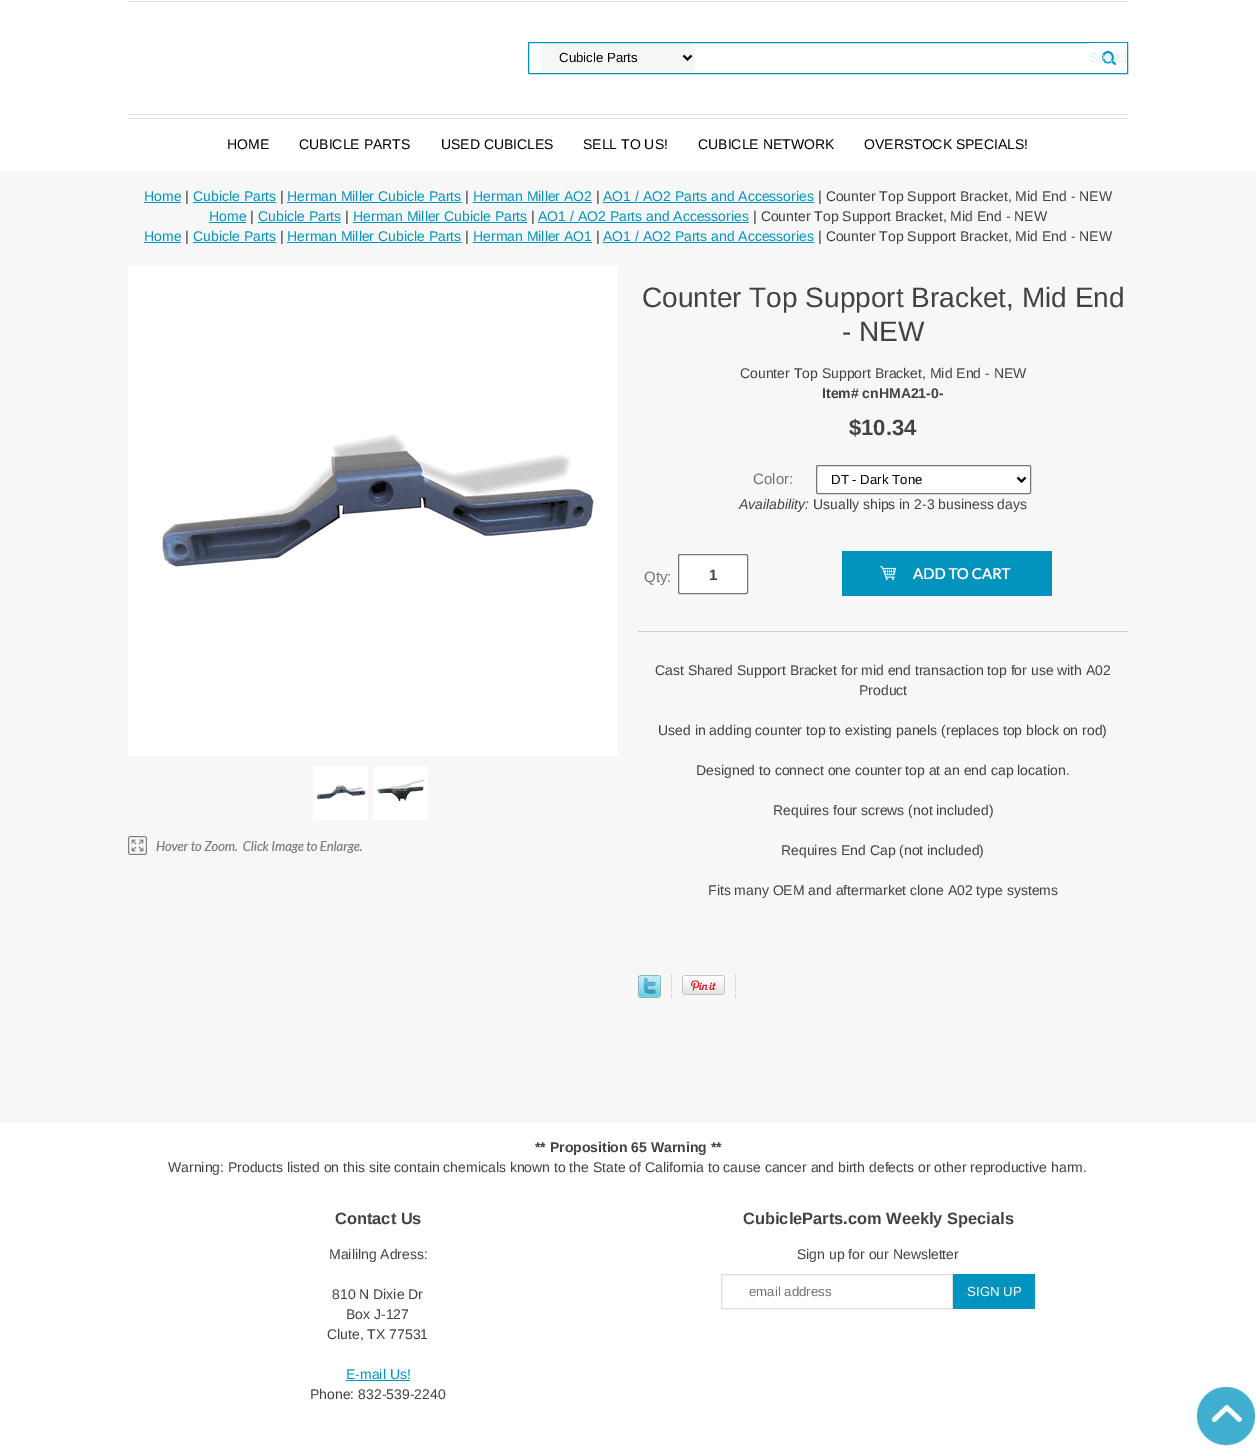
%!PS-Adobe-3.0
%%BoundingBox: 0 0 1256 1451
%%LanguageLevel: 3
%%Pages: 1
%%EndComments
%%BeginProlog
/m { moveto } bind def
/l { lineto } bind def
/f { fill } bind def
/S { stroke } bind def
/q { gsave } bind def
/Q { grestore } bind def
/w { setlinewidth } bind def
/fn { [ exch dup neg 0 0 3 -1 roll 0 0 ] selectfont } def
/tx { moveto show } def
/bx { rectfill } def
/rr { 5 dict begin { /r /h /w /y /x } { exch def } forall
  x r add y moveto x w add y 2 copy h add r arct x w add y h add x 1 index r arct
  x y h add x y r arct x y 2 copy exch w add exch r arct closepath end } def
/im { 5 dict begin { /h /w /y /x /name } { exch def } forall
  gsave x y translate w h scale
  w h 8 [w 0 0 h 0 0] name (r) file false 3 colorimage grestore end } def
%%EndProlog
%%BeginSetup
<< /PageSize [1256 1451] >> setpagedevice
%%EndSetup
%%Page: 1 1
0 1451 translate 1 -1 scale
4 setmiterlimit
1 setgray
0 0 1256 1451 bx
0.871 setgray
128 1 1000 1 bx
128 114 1000 1 bx
0 0.576 0.741 setrgbcolor
528.5 42.5 599 31 rectstroke
0.965 setgray
542 44 153 28 bx
0 setgray
2 w
683.5 55.5 m 687.5 59.5 l 691.5 55.5 l S
/LiberationSans-Regular 13.25 fn
(Cubicle Parts) 559 62 tx
(image0.raw) 1089 43 38 28 im
q
1089 43 38 28 rectclip
0.859 0.941 0.965 setrgbcolor
(Search) 1089 62 tx
Q
0.871 setgray
128 118 1000 1 bx
/LiberationSans-Regular 14 fn
0 setgray
(HOME) 227 149 tx
(CUBICLE PARTS) 299 149 tx
(USED CUBICLES) 441 149 tx
(SELL TO US!) 583 149 tx
(CUBICLE NETWORK) 698 149 tx
(OVERSTOCK SPECIALS!) 864 149 tx
0.969 setgray
0 171 1256 952 bx
0 0.576 0.741 setrgbcolor
(Home) 144 201 tx
144 202 37 1 bx
0.259 setgray
(|) 185 201 tx
0 0.576 0.741 setrgbcolor
(Cubicle Parts) 193 201 tx
193 202 83 1 bx
0.259 setgray
(|) 280 201 tx
0 0.576 0.741 setrgbcolor
(Herman Miller Cubicle Parts) 287 201 tx
287 202 175 1 bx
0.259 setgray
(|) 465 201 tx
0 0.576 0.741 setrgbcolor
(Herman Miller AO2) 473 201 tx
473 202 119 1 bx
0.259 setgray
(|) 596 201 tx
0 0.576 0.741 setrgbcolor
(AO1 / AO2 Parts and Accessories) 603 201 tx
603 202 211 1 bx
0.259 setgray
(| Counter Top Support Bracket, Mid End - NEW) 818 201 tx
0 0.576 0.741 setrgbcolor
(Home) 209 221 tx
209 222 37 1 bx
0.259 setgray
(|) 250 221 tx
0 0.576 0.741 setrgbcolor
(Cubicle Parts) 258 221 tx
258 222 83 1 bx
0.259 setgray
(|) 345 221 tx
0 0.576 0.741 setrgbcolor
(Herman Miller Cubicle Parts) 353 221 tx
353 222 174 1 bx
0.259 setgray
(|) 531 221 tx
0 0.576 0.741 setrgbcolor
(AO1 / AO2 Parts and Accessories) 538 221 tx
538 222 211 1 bx
0.259 setgray
(| Counter Top Support Bracket, Mid End - NEW) 753 221 tx
0 0.576 0.741 setrgbcolor
(Home) 144 241 tx
144 242 37 1 bx
0.259 setgray
(|) 185 241 tx
0 0.576 0.741 setrgbcolor
(Cubicle Parts) 193 241 tx
193 242 83 1 bx
0.259 setgray
(|) 280 241 tx
0 0.576 0.741 setrgbcolor
(Herman Miller Cubicle Parts) 287 241 tx
287 242 175 1 bx
0.259 setgray
(|) 465 241 tx
0 0.576 0.741 setrgbcolor
(Herman Miller AO1) 473 241 tx
473 242 119 1 bx
0.259 setgray
(|) 596 241 tx
0 0.576 0.741 setrgbcolor
(AO1 / AO2 Parts and Accessories) 603 241 tx
603 242 211 1 bx
0.259 setgray
(| Counter Top Support Bracket, Mid End - NEW) 818 241 tx
(image1.raw) 128 836 234 19 im
(image2.raw) 128 266 490 490 im
(image3.raw) 313 766 55 54 im
(image4.raw) 373 766 55 54 im
/LiberationSans-Regular 28 fn
(Counter Top Support Bracket, Mid End) 642 307 tx
(- NEW) 842 341 tx
/LiberationSans-Regular 14 fn
(Counter Top Support Bracket, Mid End - NEW) 740 378 tx
/LiberationSans-Bold 14 fn
(Item# cnHMA21-0-) 822 398 tx
/LiberationSans-Bold 22 fn
($10.34) 849 435 tx
/LiberationSans-Regular 15 fn
0.459 0.447 0.439 setrgbcolor
(Color:) 753 484 tx
1 setgray
816.5 465.5 214 28 1.5 rr q f Q
0.463 setgray
1 w
S
0 setgray
2 w
1017.5 477.5 m 1021.5 481.5 l 1025.5 477.5 l S
/LiberationSans-Regular 13.25 fn
(DT - Dark Tone) 831 484 tx
/LiberationSans-Italic 14 fn
0.259 setgray
(Availability:) 739 509 tx
/LiberationSans-Regular 14 fn
(Usually ships in 2-3 business days) 813 509 tx
/LiberationSans-Regular 15 fn
0.459 0.447 0.439 setrgbcolor
(Qty:) 644 582 tx
1 setgray
678.5 554.5 69 39 1.5 rr q f Q
0.463 setgray
1 w
S
/LiberationSans-Bold 15 fn
0.259 setgray
(1) 709 580 tx
(image5.raw) 842 551 210 45 im
0.804 0.812 0.812 setrgbcolor
638 631 490 1 bx
/LiberationSans-Regular 14 fn
0.259 setgray
(Cast Shared Support Bracket for mid end transaction top for use with A02) 655 675 tx
(Product) 859 695 tx
(Used in adding counter top to existing panels \(replaces top block on rod\)) 658 735 tx
(Designed to connect one counter top at an end cap location.) 696 775 tx
(Requires four screws \(not included\)) 773 815 tx
(Requires End Cap \(not included\)) 781 855 tx
(Fits many OEM and aftermarket clone A02 type systems) 708 895 tx
(image6.raw) 638 975 23 23 im
(image7.raw) 671 975 1 23 im
(image8.raw) 682 975 43 20 im
(image7.raw) 735 975 1 23 im
/LiberationSans-Bold 14 fn
(** Proposition 65 Warning **) 535 1152 tx
/LiberationSans-Regular 14 fn
(Warning: Products listed on this site contain chemicals known to the State of California to cause cancer and birth defects or other reproductive harm.) 168 1172 tx
/LiberationSans-Bold 16.4 fn
(Contact Us) 335 1224 tx
/LiberationSans-Regular 14 fn
(Maililng Adress:) 329 1259 tx
(810 N Dixie Dr) 332 1299 tx
(Box J-127) 346 1319 tx
(Clute, TX 77531) 327 1339 tx
0 0.576 0.741 setrgbcolor
(E-mail Us!) 346 1379 tx
346 1380 64 1 bx
0.259 setgray
(Phone: 832-539-2240) 310 1399 tx
/LiberationSans-Bold 16.4 fn
(CubicleParts.com Weekly Specials) 743 1224 tx
/LiberationSans-Regular 14 fn
(Sign up for our Newsletter) 797 1259 tx
0.871 setgray
721.5 1274.5 231 34 rectstroke
/LiberationSans-Regular 13.25 fn
0.459 0.447 0.439 setrgbcolor
(email address) 749 1296 tx
0 0.576 0.741 setrgbcolor
953 1274 82 35 bx
1 setgray
(SIGN UP) 967 1296 tx
(image9.raw) 1196 1386 60 60 im
showpage
%%EOF
